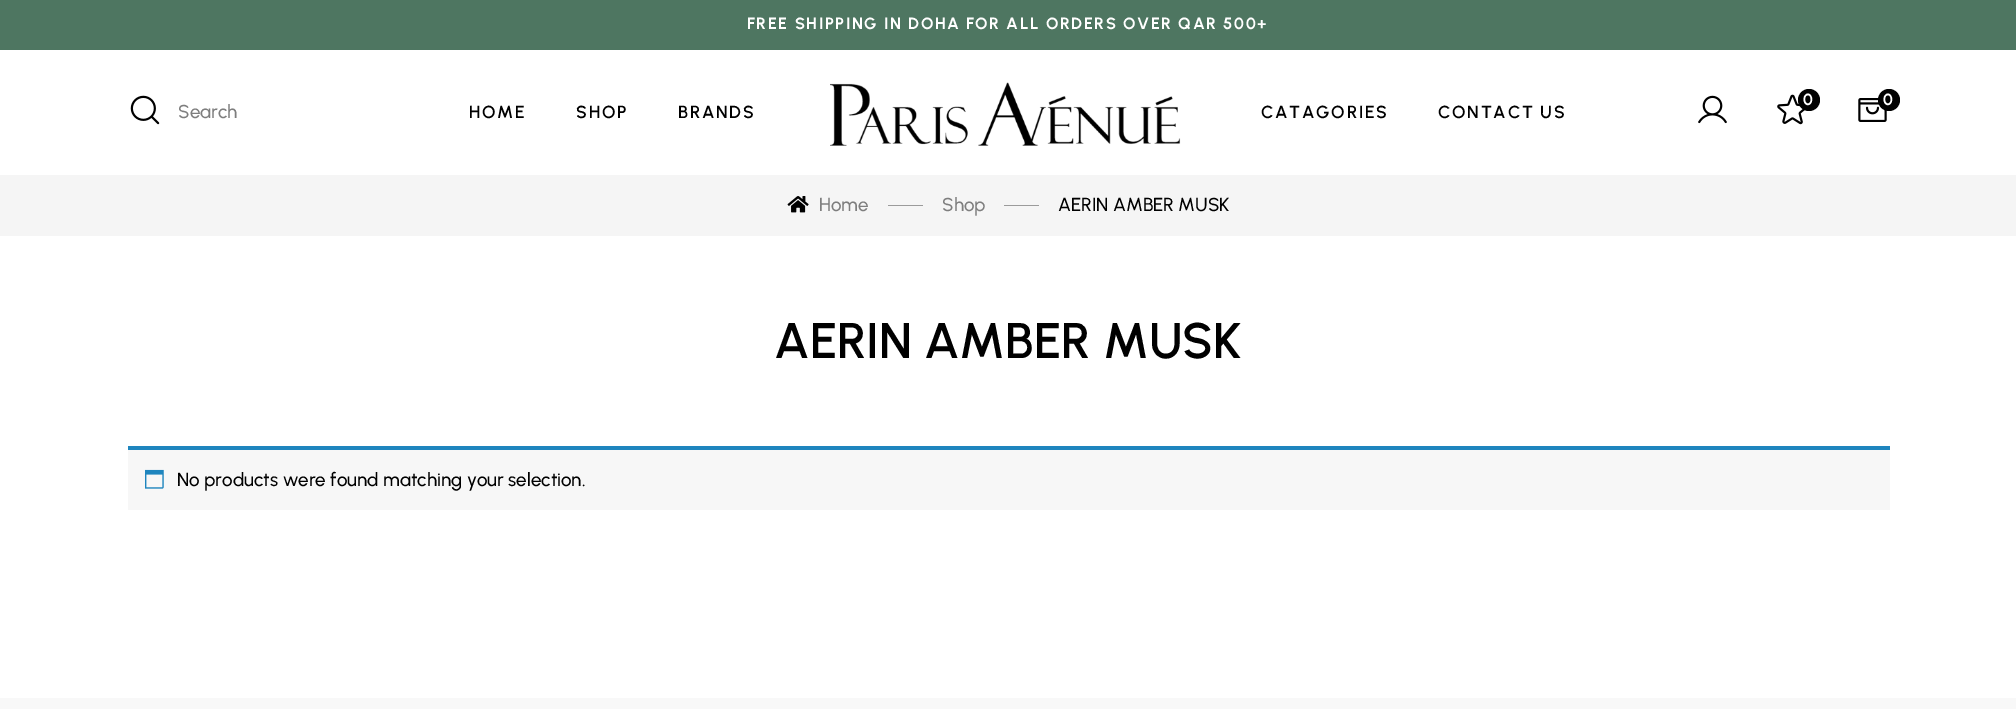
%!PS-Adobe-3.0
%%BoundingBox: 0 0 2016 709
%%LanguageLevel: 3
%%Pages: 1
%%EndComments
%%BeginProlog
/m { moveto } bind def
/f { fill } bind def
/fn { [ exch dup neg 0 0 3 -1 roll 0 0 ] selectfont } def
/tx { moveto show } def
/bx { rectfill } def
/ci { newpath 0 360 arc closepath } def
/im { 5 dict begin { /h /w /y /x /name } { exch def } forall
  gsave x y translate w h scale
  w h 8 [w 0 0 h 0 0] name (r) file false 3 colorimage grestore end } def
%%EndProlog
%%BeginSetup
<< /PageSize [2016 709] >> setpagedevice
%%EndSetup
%%Page: 1 1
0 709 translate 1 -1 scale
4 setmiterlimit
1 setgray
0 0 2016 709 bx
0.306 0.463 0.38 setrgbcolor
0 0 2016 50 bx
/Urbanist-Bold 16.25 fn
1 setgray
747 29 m 1.62 0 (FREE SHIPPING IN DOHA FOR ALL ORDERS OVER QAR 500+) ashow
(image0.raw) 130 95 30 30 im
/Urbanist-Medium 18.75 fn
0.494 setgray
(Search) 178 118 tx
/Urbanist-SemiBold 17.5 fn
0 setgray
469 118 m 1.75 0 (HOME) ashow
576 118 m 1.75 0 (SHOP) ashow
678 118 m 1.75 0 (BRANDS) ashow
(image1.raw) 830 82 351 64 im
(image2.raw) 1698 95 29 29 im
(image3.raw) 1777 94 28 31 im
1809 100 11 ci f
/Urbanist-Bold 16.25 fn
1 setgray
(0) 1803 105 tx
(image4.raw) 1858 98 29 24 im
0 setgray
1889 100 11 ci f
1 setgray
(0) 1883 105 tx
/Urbanist-SemiBold 17.5 fn
0 setgray
1261 118 m 1.75 0 (CATAGORIES) ashow
1438 118 m 1.75 0 (CONTACT US) ashow
0.961 setgray
0 175 2016 61 bx
(image5.raw) 787 196 22 17 im
/Urbanist-Medium 18.75 fn
0.494 setgray
(Home) 819 211 tx
0.608 setgray
888 205 35 1 bx
0.494 setgray
(Shop) 942 211 tx
0.608 setgray
1004 205 35 1 bx
0 setgray
(AERIN AMBER MUSK) 1058 211 tx
/Urbanist-SemiBold 50 fn
(AERIN AMBER MUSK) 774 358 tx
0.969 setgray
128 450 1762 60 bx
0.118 0.522 0.745 setrgbcolor
128 446 1762 4 bx
(image6.raw) 145 469 19 20 im
/Urbanist-Medium 18.75 fn
0 setgray
(No products were found matching your selection.) 177 486 tx
0.973 setgray
0 698 2016 11 bx
showpage
%%EOF
